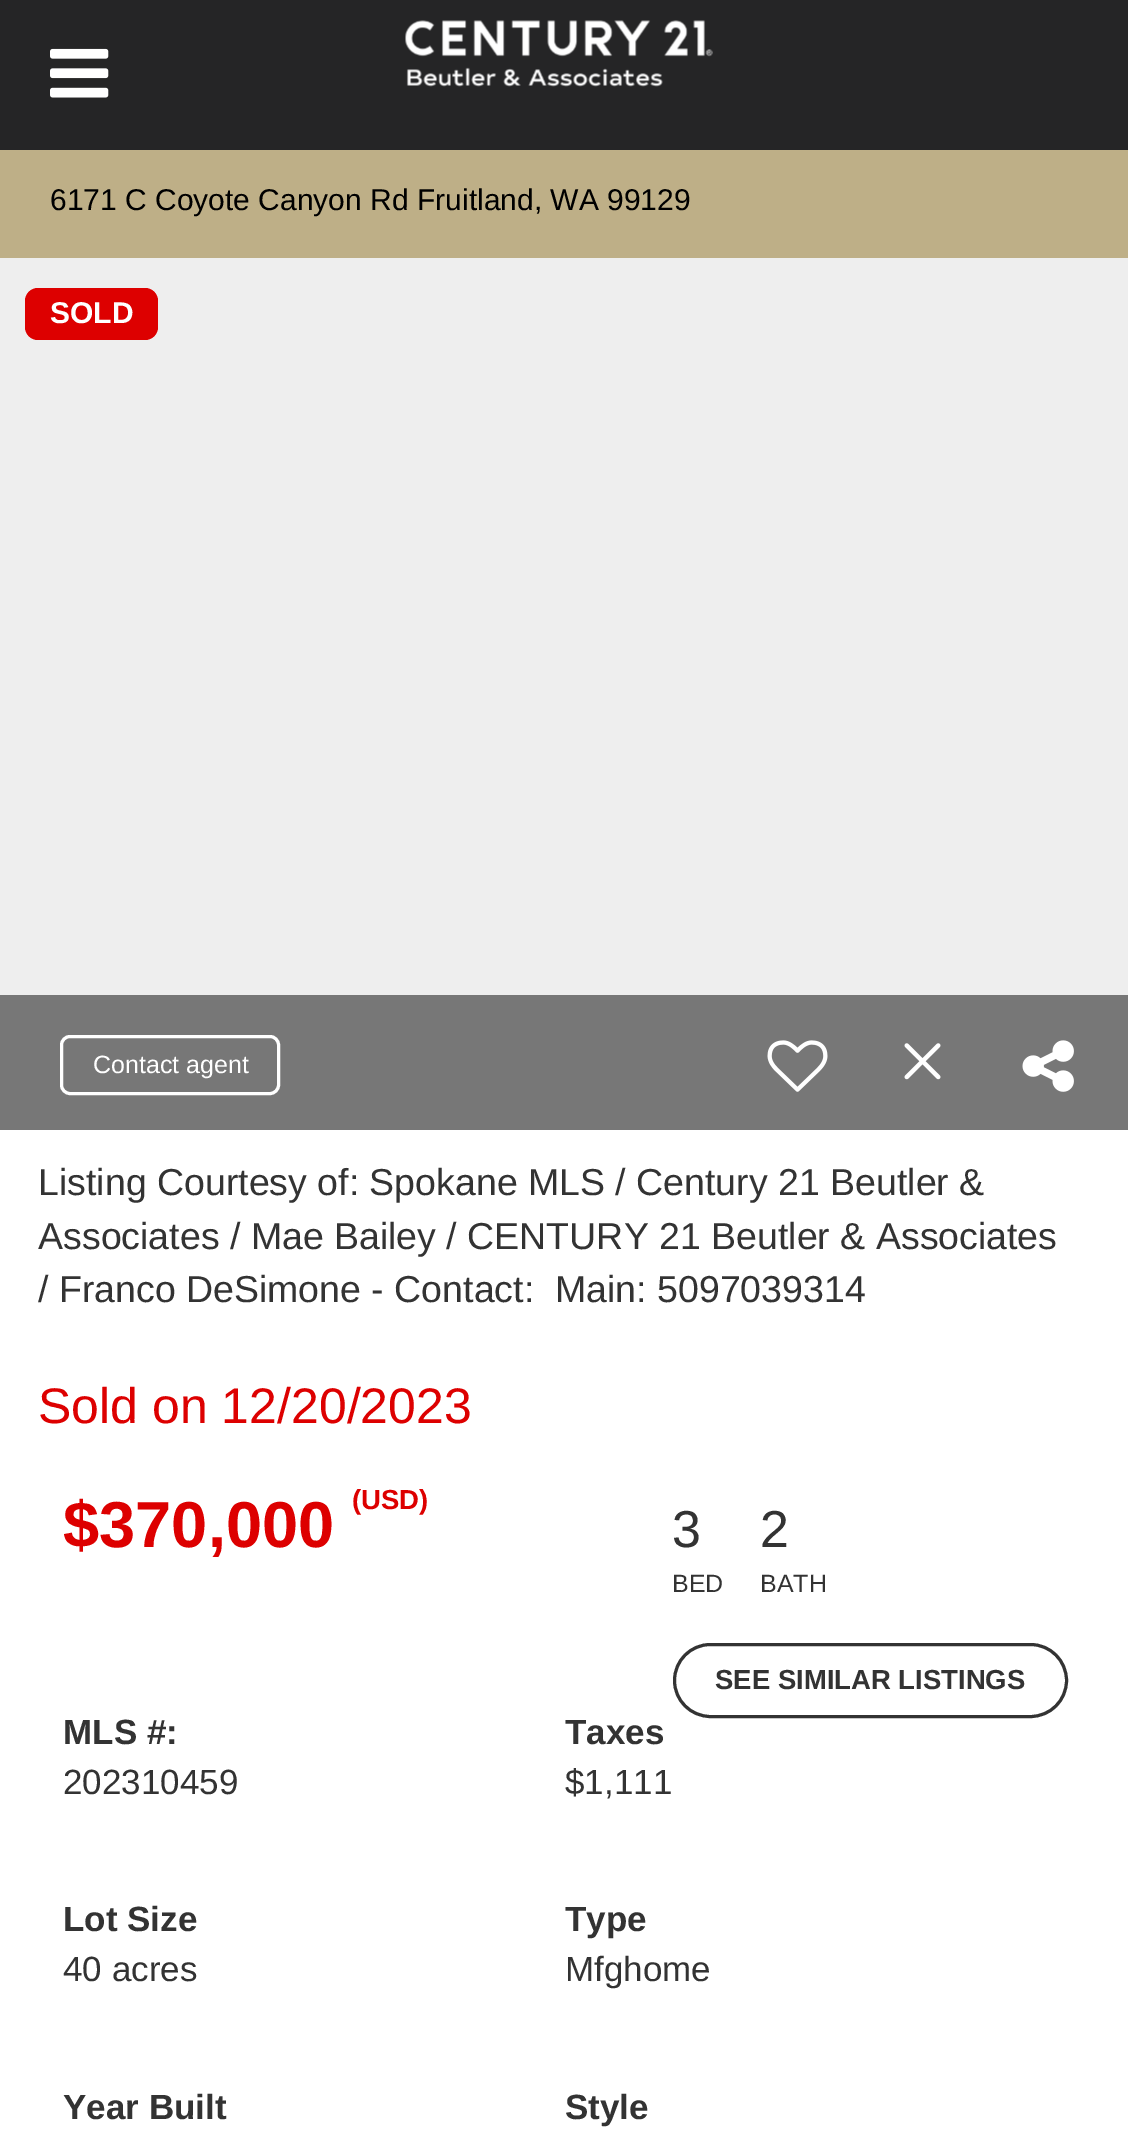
%!PS-Adobe-3.0
%%BoundingBox: 0 0 1128 2141
%%LanguageLevel: 3
%%Pages: 1
%%EndComments
%%BeginProlog
/f { fill } bind def
/S { stroke } bind def
/w { setlinewidth } bind def
/fn { [ exch dup neg 0 0 3 -1 roll 0 0 ] selectfont } def
/tx { moveto show } def
/bx { rectfill } def
/rr { 5 dict begin { /r /h /w /y /x } { exch def } forall
  x r add y moveto x w add y 2 copy h add r arct x w add y h add x 1 index r arct
  x y h add x y r arct x y 2 copy exch w add exch r arct closepath end } def
/im { 5 dict begin { /h /w /y /x /name } { exch def } forall
  gsave x y translate w h scale
  w h 8 [w 0 0 h 0 0] name (r) file false 3 colorimage grestore end } def
%%EndProlog
%%BeginSetup
<< /PageSize [1128 2141] >> setpagedevice
%%EndSetup
%%Page: 1 1
0 2141 translate 1 -1 scale
4 setmiterlimit
1 setgray
0 0 1128 2141 bx
0.145 0.145 0.149 setrgbcolor
0 0 1128 150 bx
(image0.raw) 50 48 59 50 im
(image1.raw) 405 20 308 67 im
0.745 0.686 0.529 setrgbcolor
0 150 1128 108 bx
/LiberationSans-Regular 30 fn
0 setgray
(6171 C Coyote Canyon Rd Fruitland, WA 99129) 50 210 tx
0.933 setgray
0 258 1128 737 bx
0.867 0 0 setrgbcolor
25 288 133 52 13 rr f
/LiberationSans-Bold 30 fn
1 setgray
(SOLD) 50 323 tx
0.467 setgray
0 995 1128 135 bx
1 setgray
3 w
61.5 1036.5 217 57 8.5 rr S
/LiberationSans-Regular 25 fn
(Contact agent) 93 1073 tx
(image2.raw) 767 1040 61 52 im
(image3.raw) 904 1043 37 37 im
(image4.raw) 1022 1040 52 52 im
/LiberationSans-Regular 37.5 fn
0.2 setgray
(Listing Courtesy of: Spokane MLS / Century 21 Beutler &) 38 1195 tx
(Associates / Mae Bailey / CENTURY 21 Beutler & Associates) 38 1249 tx
(/ Franco DeSimone - Contact:  Main: 5097039314) 38 1302 tx
/LiberationSans-Regular 50 fn
0.867 0 0 setrgbcolor
(Sold on 12/20/2023) 38 1423 tx
/LiberationSans-Bold 65 fn
($370,000) 63 1547 tx
/LiberationSans-Bold 27.5 fn
(\(USD\)) 352 1509 tx
/LiberationSans-Regular 52 fn
0.2 setgray
(3) 672 1547 tx
/LiberationSans-Regular 25 fn
(BED) 672 1592 tx
/LiberationSans-Regular 52 fn
(2) 760 1547 tx
/LiberationSans-Regular 25 fn
(BATH) 760 1592 tx
674.5 1644.5 392 72 36 rr S
/LiberationSans-Bold 27.5 fn
(SEE SIMILAR LISTINGS) 715 1689 tx
/LiberationSans-Bold 35 fn
(MLS #:) 63 1744 tx
/LiberationSans-Regular 35 fn
(202310459) 63 1794 tx
/LiberationSans-Bold 35 fn
(Taxes) 565 1744 tx
/LiberationSans-Regular 35 fn
($1,111) 565 1794 tx
/LiberationSans-Bold 35 fn
(Lot Size) 63 1931 tx
/LiberationSans-Regular 35 fn
(40 acres) 63 1981 tx
/LiberationSans-Bold 35 fn
(Type) 565 1931 tx
/LiberationSans-Regular 35 fn
(Mfghome) 565 1981 tx
/LiberationSans-Bold 35 fn
(Year Built) 63 2119 tx
(Style) 565 2119 tx
showpage
%%EOF
